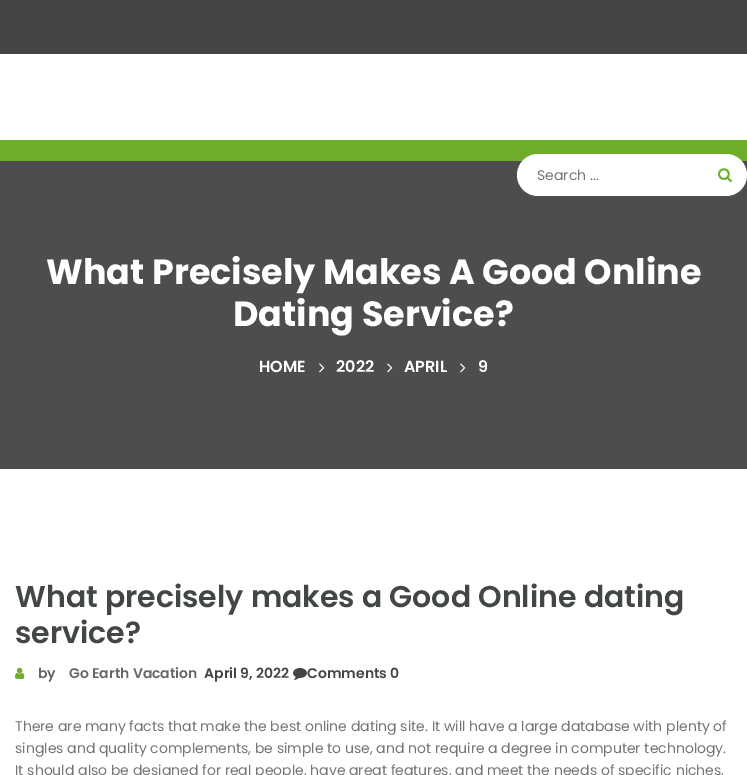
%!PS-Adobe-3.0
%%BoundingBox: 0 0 747 775
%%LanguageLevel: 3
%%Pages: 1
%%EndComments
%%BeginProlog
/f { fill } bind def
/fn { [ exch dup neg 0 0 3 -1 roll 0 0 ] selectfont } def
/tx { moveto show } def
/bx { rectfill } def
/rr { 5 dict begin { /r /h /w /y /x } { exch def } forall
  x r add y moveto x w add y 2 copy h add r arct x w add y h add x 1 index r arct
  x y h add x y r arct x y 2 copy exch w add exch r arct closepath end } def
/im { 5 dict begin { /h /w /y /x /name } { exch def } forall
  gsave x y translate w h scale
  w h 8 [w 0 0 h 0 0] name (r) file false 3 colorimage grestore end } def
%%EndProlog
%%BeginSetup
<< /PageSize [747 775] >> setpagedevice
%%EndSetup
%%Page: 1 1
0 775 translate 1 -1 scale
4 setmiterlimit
1 setgray
0 0 747 775 bx
0.271 setgray
0 0 747 54 bx
0.431 0.678 0.165 setrgbcolor
0 140 747 21 bx
0.302 setgray
0 161 747 308 bx
1 setgray
517 154 230 42 21 rr f
/Poppins-Regular 14 fn
0.459 setgray
(Search ...) 537 180 tx
(image0.raw) 718 168 14 15 im
/Poppins-Bold 35 fn
1 setgray
(What Precisely Makes A Good Online) 46 284 tx
(Dating Service?) 233 326 tx
/Poppins-SemiBold 16 fn
(HOME) 259 372 tx
(image1.raw) 319 363 6 10 im
(2022) 336 372 tx
(image1.raw) 387 363 6 10 im
(APRIL) 404 372 tx
(image1.raw) 460 363 6 10 im
(9) 478 372 tx
/Poppins-SemiBold 30 fn
0.259 0.275 0.275 setrgbcolor
(What precisely makes a Good Online dating) 15 607 tx
(service?) 15 643 tx
(image2.raw) 15 667 10 12 im
/Poppins-SemiBold 14 fn
0.4 setgray
(by) 38 678 tx
(Go Earth Vacation) 69 678 tx
0.259 0.275 0.275 setrgbcolor
(April 9, 2022) 204 678 tx
(image3.raw) 293 668 14 12 im
(Comments 0) 307 678 tx
/Poppins-Regular 14 fn
0.459 setgray
(There are many facts that make the best online dating site. It will have a large database with plenty of) 15 731 tx
(singles and quality complements, be simple to use, and not require a degree in computer technology.) 15 753 tx
(It should also be designed for real people, have great features, and meet the needs of specific niches,) 15 775 tx
showpage
%%EOF
